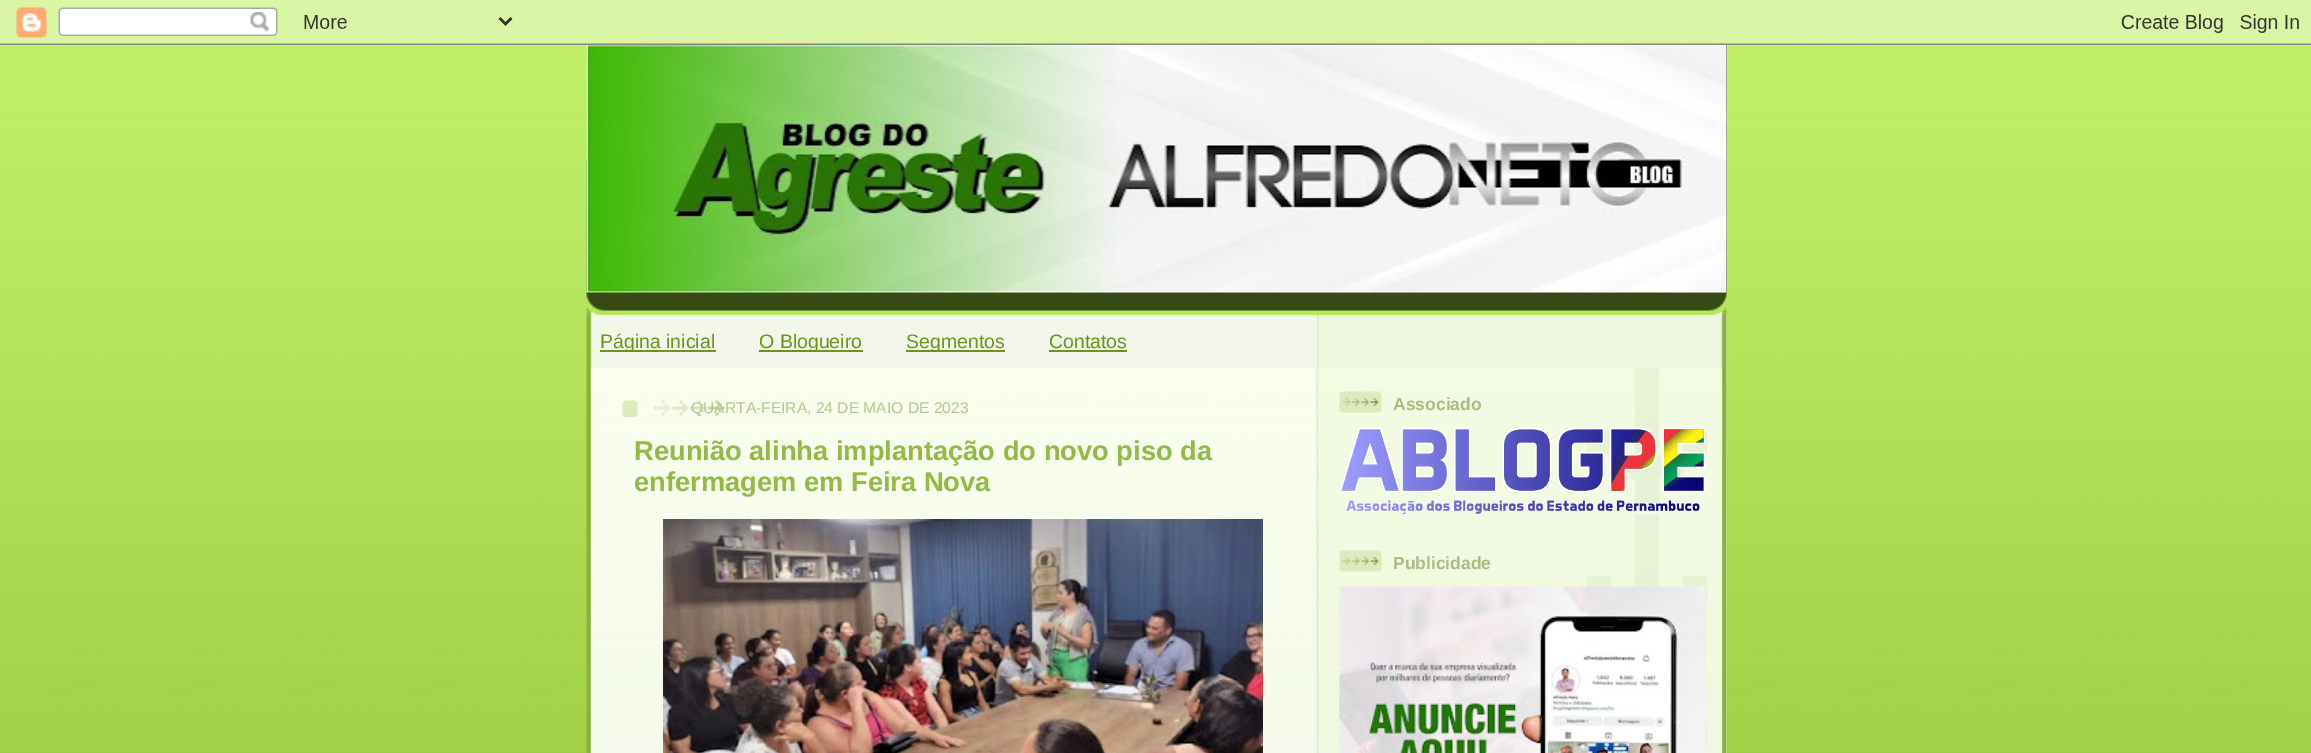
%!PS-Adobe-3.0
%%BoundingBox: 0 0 2311 753
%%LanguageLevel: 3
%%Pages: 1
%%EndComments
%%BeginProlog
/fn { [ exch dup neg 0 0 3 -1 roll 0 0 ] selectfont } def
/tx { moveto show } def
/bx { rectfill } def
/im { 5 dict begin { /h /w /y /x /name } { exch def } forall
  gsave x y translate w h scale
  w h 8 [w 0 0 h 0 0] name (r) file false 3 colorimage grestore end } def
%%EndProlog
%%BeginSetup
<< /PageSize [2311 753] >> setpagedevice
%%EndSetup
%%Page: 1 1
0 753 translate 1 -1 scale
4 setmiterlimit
0.616 0.808 0.263 setrgbcolor
0 0 2311 753 bx
(image0.raw) 0 0 2311 751 im
(image1.raw) 0 0 2311 45 im
(image2.raw) 586 292 1141 23 im
0.294 0.388 0.125 setrgbcolor
587 45 1140 248 bx
(image3.raw) 586 160 1141 133 im
(image4.raw) 586 45 1141 248 im
0.969 0.941 0.914 setrgbcolor
1726 315 1 438 bx
(image5.raw) 586 315 1141 438 im
0.416 0.592 0.094 setrgbcolor
600 350 116 2 bx
/LiberationSans-Regular 19.5 fn
(Página inicial) 600 348 tx
759 350 104 2 bx
(O Blogueiro) 759 348 tx
906 350 99 2 bx
(Segmentos) 906 348 tx
(Contatos) 1049 348 tx
1049 350 78 2 bx
(image6.raw) 591 367 724 386 im
(image7.raw) 622 400 16 17 im
(image8.raw) 654 400 71 16 im
/LiberationSans-Regular 15.6 fn
0.71 0.784 0.561 setrgbcolor
(QUARTA-FEIRA, 24 DE MAIO DE 2023) 691 413 tx
/LiberationSans-Bold 27.3 fn
0.573 0.729 0.278 setrgbcolor
(Reunião alinha implantação do novo piso da) 634 460 tx
(enfermagem em Feira Nova) 634 491 tx
(image9.raw) 663 519 600 234 im
(image10.raw) 1318 367 404 386 im
(image11.raw) 1587 368 120 381 im
(image12.raw) 1339 391 43 22 im
/LiberationSans-Bold 17.5 fn
0.663 0.741 0.502 setrgbcolor
(Associado) 1393 410 tx
(image13.raw) 1339 427 367 88 im
(image14.raw) 1339 550 43 22 im
(Publicidade) 1393 569 tx
(image15.raw) 1339 586 367 167 im
showpage
%%EOF
